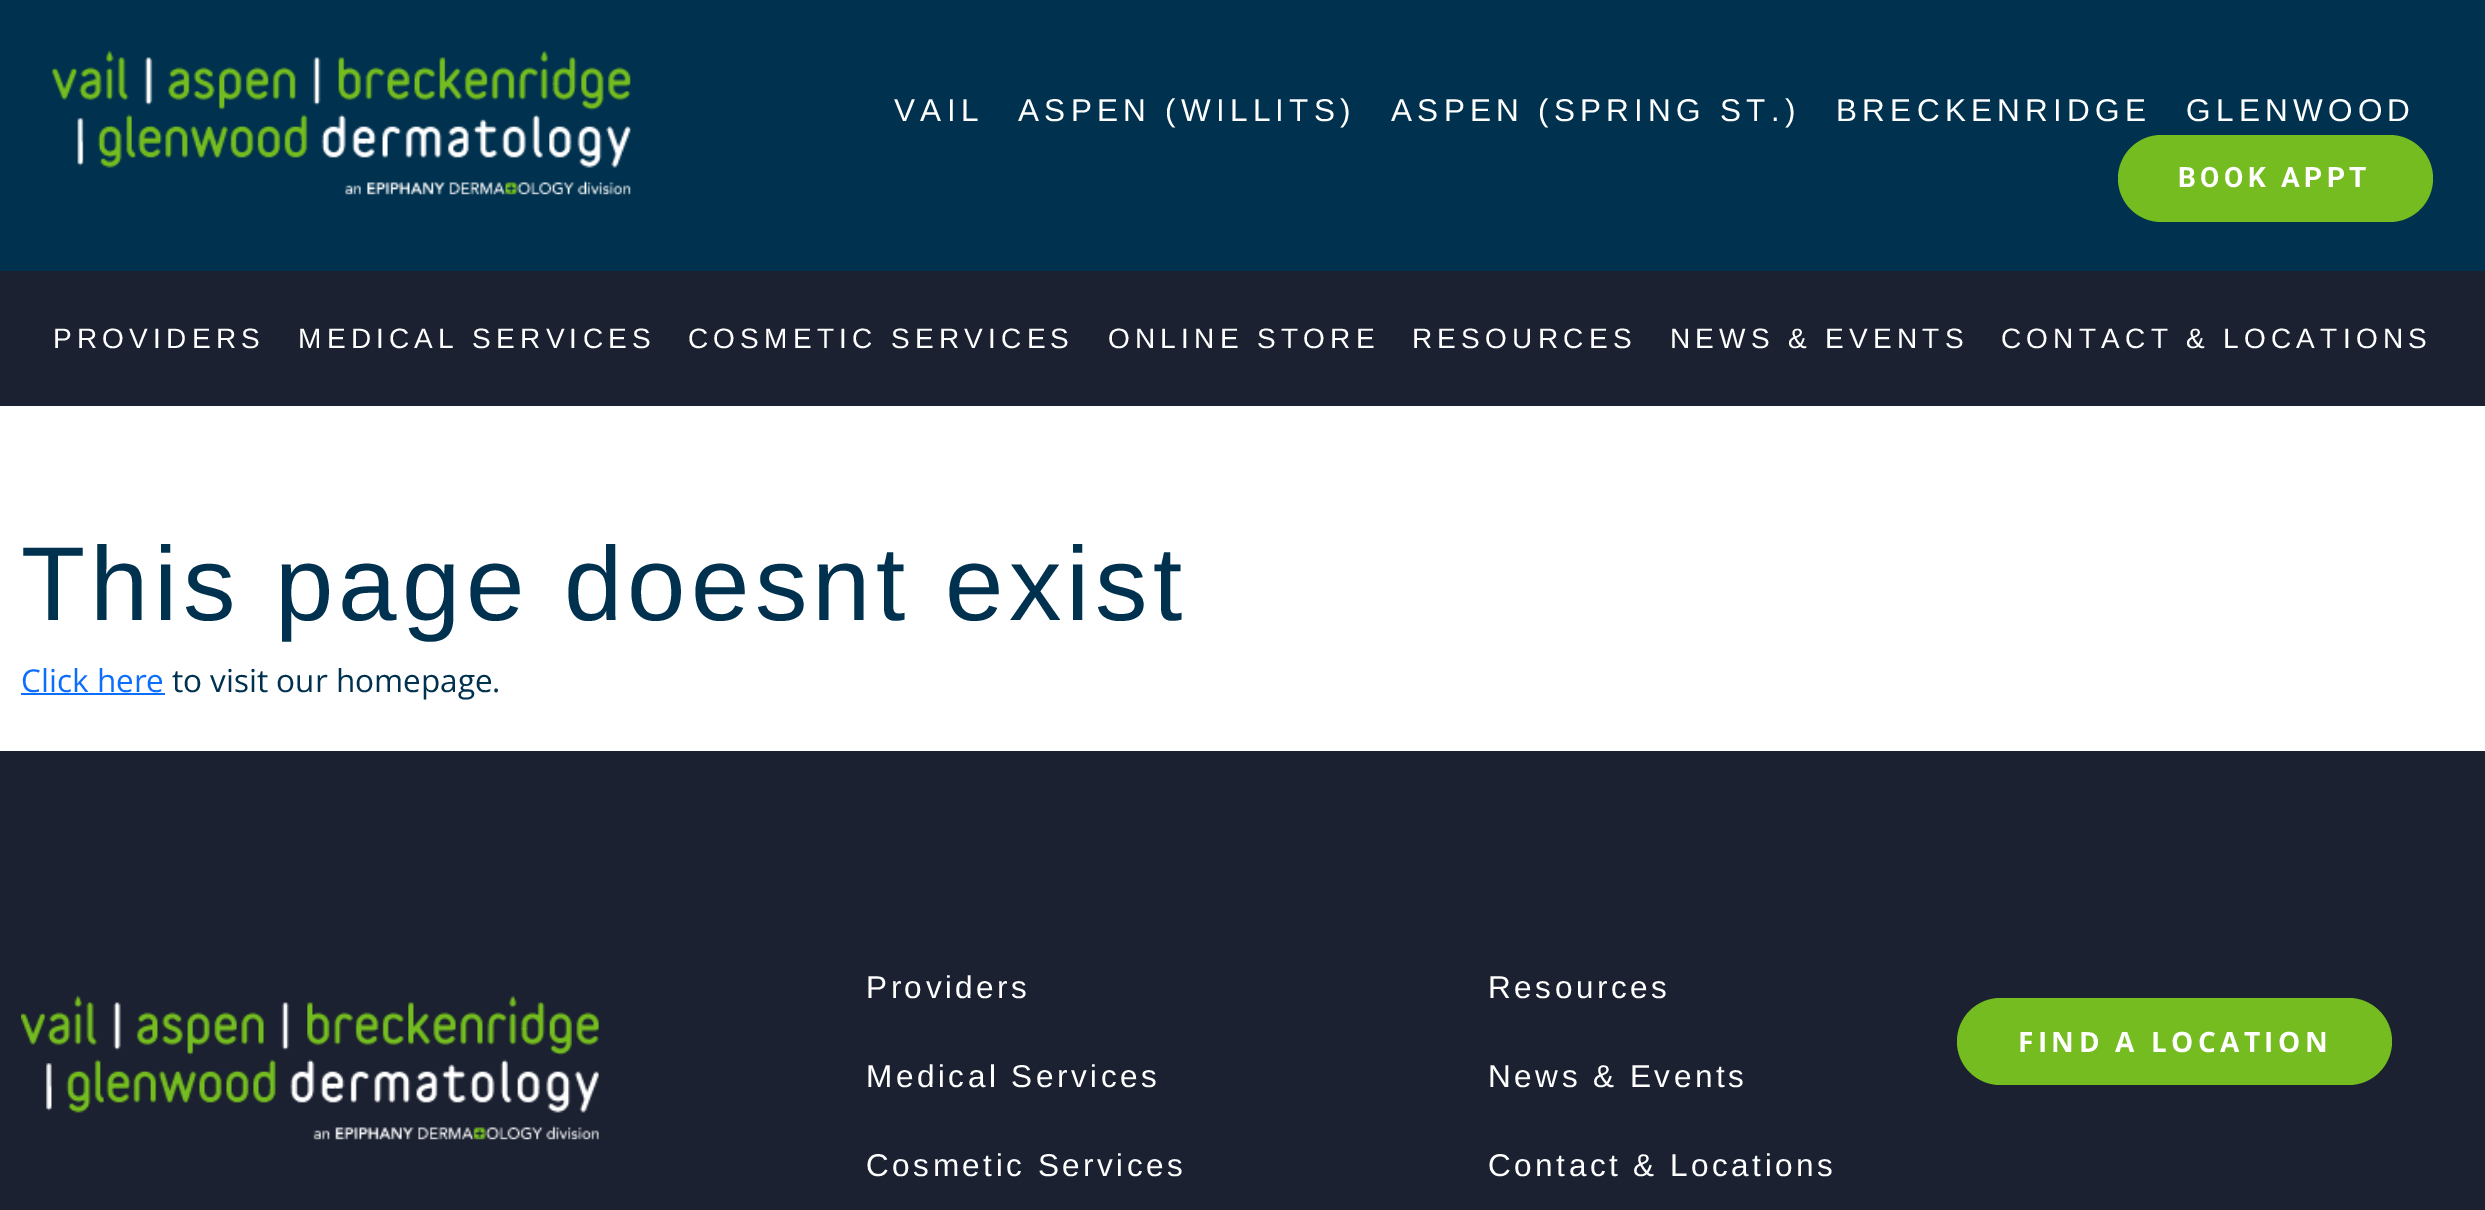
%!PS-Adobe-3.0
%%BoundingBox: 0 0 2485 1210
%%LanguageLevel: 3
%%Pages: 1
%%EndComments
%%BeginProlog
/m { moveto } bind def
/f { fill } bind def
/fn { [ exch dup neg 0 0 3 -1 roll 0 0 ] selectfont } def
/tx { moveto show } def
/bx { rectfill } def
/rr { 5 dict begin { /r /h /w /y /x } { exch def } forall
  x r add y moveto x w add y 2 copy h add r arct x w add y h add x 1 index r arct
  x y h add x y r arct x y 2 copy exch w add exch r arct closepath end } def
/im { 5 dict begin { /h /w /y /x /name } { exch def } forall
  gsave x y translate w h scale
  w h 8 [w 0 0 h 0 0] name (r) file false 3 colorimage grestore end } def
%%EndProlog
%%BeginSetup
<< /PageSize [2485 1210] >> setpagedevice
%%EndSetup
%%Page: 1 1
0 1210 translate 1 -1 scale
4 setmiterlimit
1 setgray
0 0 2485 1210 bx
0 0.192 0.306 setrgbcolor
0 0 2485 271 bx
(image0.raw) 52 50 579 145 im
/LiberationSans-Regular 31.5 fn
1 setgray
894 121 m 5.25 0 (VAIL) ashow
1018 121 m 5.25 0 (ASPEN \(WILLITS\)) ashow
1391 121 m 5.25 0 (ASPEN \(SPRING ST.\)) ashow
1836 121 m 5.25 0 (BRECKENRIDGE) ashow
2186 121 m 5.25 0 (GLENWOOD) ashow
0.455 0.737 0.122 setrgbcolor
2118 135 315 87 43.5 rr f
/Roboto-Bold 28 fn
1 setgray
2178 187 m 4.4 0 (BOOK APPT) ashow
0.106 0.129 0.192 setrgbcolor
0 271 2485 135 bx
/LiberationSans-Regular 28 fn
1 setgray
53 348 m 5.25 0 (PROVIDERS) ashow
298 348 m 5.25 0 (MEDICAL SERVICES) ashow
688 348 m 5.25 0 (COSMETIC SERVICES) ashow
1108 348 m 5.25 0 (ONLINE STORE) ashow
1412 348 m 5.25 0 (RESOURCES) ashow
1670 348 m 5.25 0 (NEWS & EVENTS) ashow
2001 348 m 5.25 0 (CONTACT & LOCATIONS) ashow
/LiberationSans-Regular 105 fn
0 0.192 0.306 setrgbcolor
21 620 m 5.25 0 (This page doesnt exist) ashow
/OpenSans-Regular 31.5 fn
0.051 0.431 0.992 setrgbcolor
(Click here) 21 692 tx
21 693 144 2 bx
0 0.192 0.306 setrgbcolor
(to visit our homepage.) 172 692 tx
0.106 0.129 0.192 setrgbcolor
0 751 2485 459 bx
(image1.raw) 21 995 578 145 im
/LiberationSans-Regular 31.5 fn
1 setgray
866 998 m 3.5 0 (Providers) ashow
866 1087 m 3.5 0 (Medical Services) ashow
866 1176 m 3.5 0 (Cosmetic Services) ashow
1488 998 m 3.5 0 (Resources) ashow
1488 1087 m 3.5 0 (News & Events) ashow
1488 1176 m 3.5 0 (Contact & Locations) ashow
0.455 0.737 0.122 setrgbcolor
1957 998 435 87 43.5 rr f
/OpenSans-Bold 28 fn
1 setgray
2018 1052 m 4.4 0 (FIND A LOCATION) ashow
showpage
%%EOF
